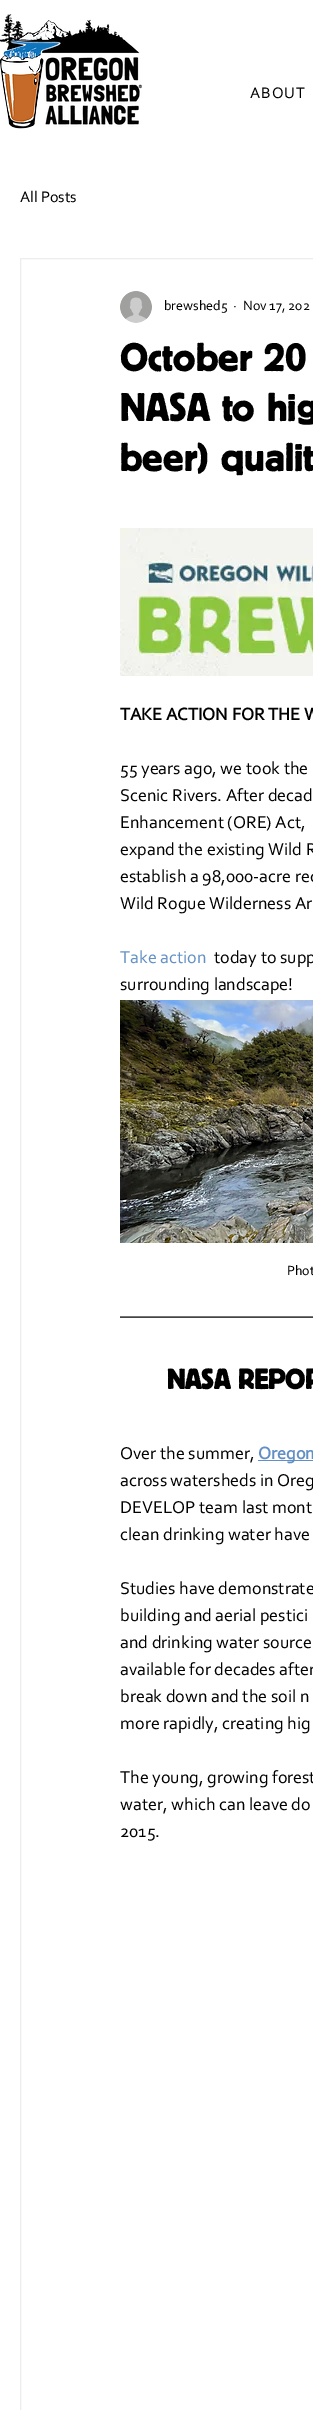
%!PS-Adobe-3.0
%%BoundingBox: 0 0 313 2410
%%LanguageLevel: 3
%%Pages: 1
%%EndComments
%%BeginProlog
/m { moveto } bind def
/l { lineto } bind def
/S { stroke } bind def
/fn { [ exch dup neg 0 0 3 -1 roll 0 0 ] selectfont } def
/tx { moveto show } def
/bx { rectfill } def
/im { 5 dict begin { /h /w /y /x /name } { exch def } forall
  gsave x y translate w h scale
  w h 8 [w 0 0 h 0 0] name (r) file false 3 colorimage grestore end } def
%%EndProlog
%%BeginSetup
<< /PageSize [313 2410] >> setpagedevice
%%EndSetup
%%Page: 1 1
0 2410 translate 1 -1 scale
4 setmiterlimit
1 setgray
0 0 313 2410 bx
(image0.raw) 0 14 142 115 im
/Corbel-Regular 16 fn
0 setgray
250 98 m 1 0 (ABOUT) ashow
(All Posts) 20 202 tx
0.933 0.925 0.925 setrgbcolor
20.5 258.5 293 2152 rectstroke
(image1.raw) 120 291 32 32 im
/Corbel-Regular 14 fn
0 setgray
(brewshed5) 164 310 tx
(·) 233 310 tx
(Nov 17, 202) 243 310 tx
/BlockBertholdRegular-Regular 40 fn
(October 20) 120 371 tx
(NASA to hig) 120 421 tx
(beer\) qualit) 120 471 tx
(image2.raw) 120 528 193 148 im
/Corbel-Bold 18 fn
(TAKE ACTION FOR THE W) 120 720 tx
/Corbel-Regular 18 fn
(55 years ago, we took the) 120 774 tx
(Scenic Rivers. After decad) 120 801 tx
(Enhancement \(ORE\) Act,) 120 828 tx
(expand the existing Wild R) 120 855 tx
(establish a 98,000-acre rec) 120 882 tx
(Wild Rogue Wilderness Ar) 120 909 tx
0.384 0.565 0.773 setrgbcolor
(Take action) 120 963 tx
0 setgray
(today to supp) 214 963 tx
(surrounding landscape!) 120 990 tx
(image3.raw) 120 1000 193 243 im
/Corbel-Regular 14 fn
(Phot) 287 1275 tx
120 1317 m 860 1317 l S
/BlockBertholdRegular-Bold 28 fn
(NASA REPOR) 167 1389 tx
/Corbel-Regular 18 fn
(Over the summer,) 120 1459 tx
0.384 0.565 0.773 setrgbcolor
258 1460 55 1 bx
/Corbel-Bold 18 fn
(Oregon) 258 1459 tx
/Corbel-Regular 18 fn
0 setgray
(across watersheds in Oreg) 120 1486 tx
(DEVELOP team last mont) 120 1513 tx
(clean drinking water have) 120 1540 tx
(Studies have demonstrate) 120 1594 tx
(building and aerial pestici) 120 1621 tx
(and drinking water source) 120 1648 tx
(available for decades after) 120 1675 tx
(break down and the soil n) 120 1702 tx
(more rapidly, creating hig) 120 1729 tx
(The young, growing forest) 120 1783 tx
(water, which can leave do) 120 1810 tx
(2015.) 120 1837 tx
showpage
%%EOF
